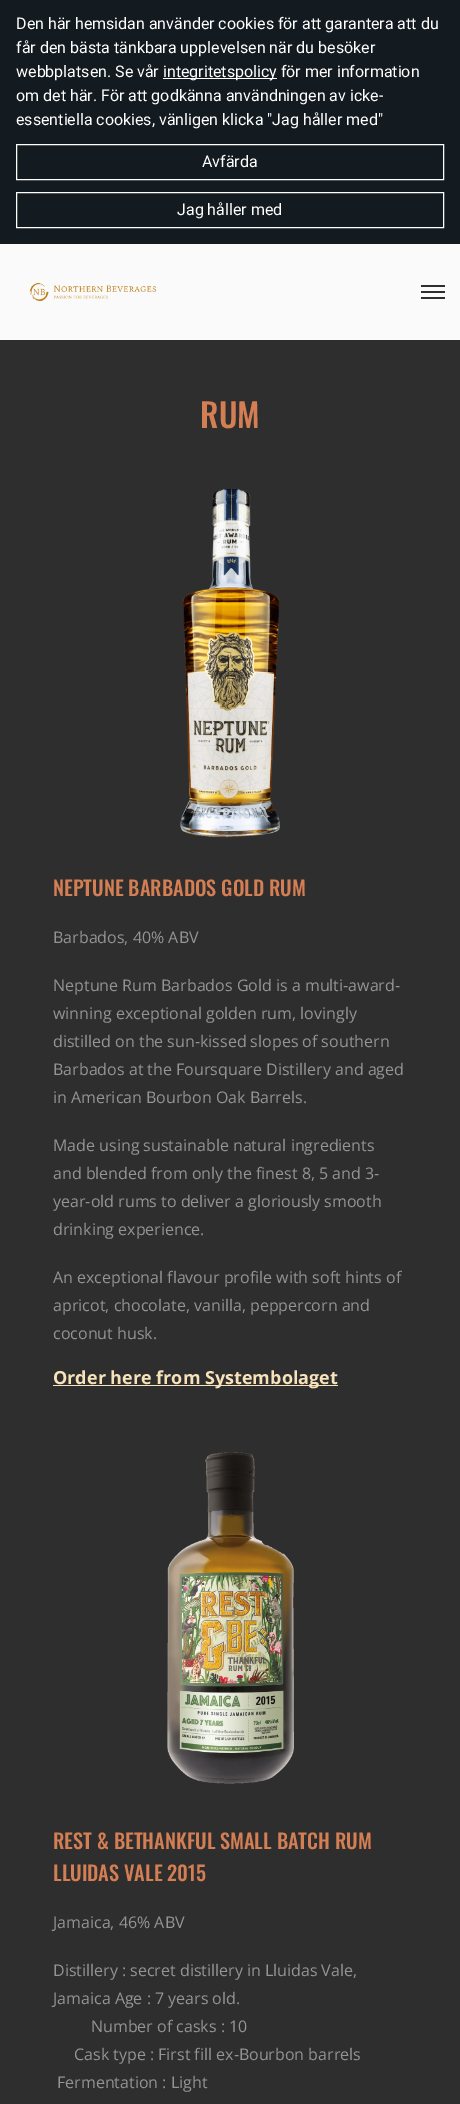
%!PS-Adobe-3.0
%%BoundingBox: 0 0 460 2104
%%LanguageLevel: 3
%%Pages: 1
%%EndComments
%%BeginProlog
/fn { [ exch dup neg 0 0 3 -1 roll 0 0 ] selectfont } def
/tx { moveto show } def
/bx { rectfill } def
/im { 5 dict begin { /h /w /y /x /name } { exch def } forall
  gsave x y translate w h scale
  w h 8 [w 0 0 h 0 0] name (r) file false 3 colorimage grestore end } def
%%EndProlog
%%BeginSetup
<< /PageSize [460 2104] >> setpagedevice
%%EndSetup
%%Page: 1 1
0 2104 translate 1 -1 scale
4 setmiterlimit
0.075 0.102 0.125 setrgbcolor
0 0 460 2104 bx
/Roboto-Regular 16 fn
1 setgray
(Den här hemsidan använder cookies för att garantera att du) 16 29 tx
(får den bästa tänkbara upplevelsen när du besöker) 16 53 tx
(webbplatsen. Se vår) 16 77 tx
163 78 114 1 bx
(integritetspolicy för mer information) 163 77 tx
(om det här. För att godkänna användningen av icke-) 16 101 tx
(essentiella cookies, vänligen klicka "Jag håller med") 16 125 tx
16.5 144.5 427 35 rectstroke
(Avfärda) 202 167 tx
16.5 192.5 427 35 rectstroke
(Jag håller med) 177 215 tx
0.98 setgray
0 244 460 96 bx
(image0.raw) 29 282 128 20 im
0.18 setgray
421 291 24 2 bx
421 285 24 2 bx
421 297 24 2 bx
0 340 460 1764 bx
/Oswald-Medium 33 fn
0.831 0.494 0.329 setrgbcolor
(RUM) 200 428 tx
(image1.raw) 180 488 100 350 im
/Oswald-Medium 20.3 fn
(NEPTUNE BARBADOS GOLD RUM) 53 896 tx
/OpenSans-Regular 16 fn
0.58 setgray
(Barbados, 40% ABV) 53 943 tx
(Neptune Rum Barbados Gold is a multi-award-) 53 991 tx
(winning exceptional golden rum, lovingly) 53 1019 tx
(distilled on the sun-kissed slopes of southern) 53 1047 tx
(Barbados at the Foursquare Distillery and aged) 53 1075 tx
(in American Bourbon Oak Barrels.) 53 1103 tx
(Made using sustainable natural ingredients) 53 1151 tx
(and blended from only the finest 8, 5 and 3-) 53 1179 tx
(year-old rums to deliver a gloriously smooth) 53 1207 tx
(drinking experience.) 53 1235 tx
(An exceptional flavour profile with soft hints of) 53 1283 tx
(apricot, chocolate, vanilla, peppercorn and) 53 1311 tx
(coconut husk.) 53 1339 tx
0.973 0.886 0.725 setrgbcolor
53 1385 285 1 bx
/OpenSans-Bold 18 fn
(Order here from Systembolaget) 53 1384 tx
(image2.raw) 167 1452 127 332 im
/Oswald-Medium 20.3 fn
0.831 0.494 0.329 setrgbcolor
(REST & BETHANKFUL SMALL BATCH RUM) 53 1849 tx
(LLUIDAS VALE 2015) 53 1881 tx
/OpenSans-Regular 16 fn
0.58 setgray
(Jamaica, 46% ABV) 53 1928 tx
(Distillery : secret distillery in Lluidas Vale,) 53 1976 tx
(Jamaica Age : 7 years old.) 53 2004 tx
(Number of casks : 10) 91 2032 tx
(Cask type : First fill ex-Bourbon barrels) 74 2060 tx
(Fermentation : Light) 57 2088 tx
showpage
%%EOF
